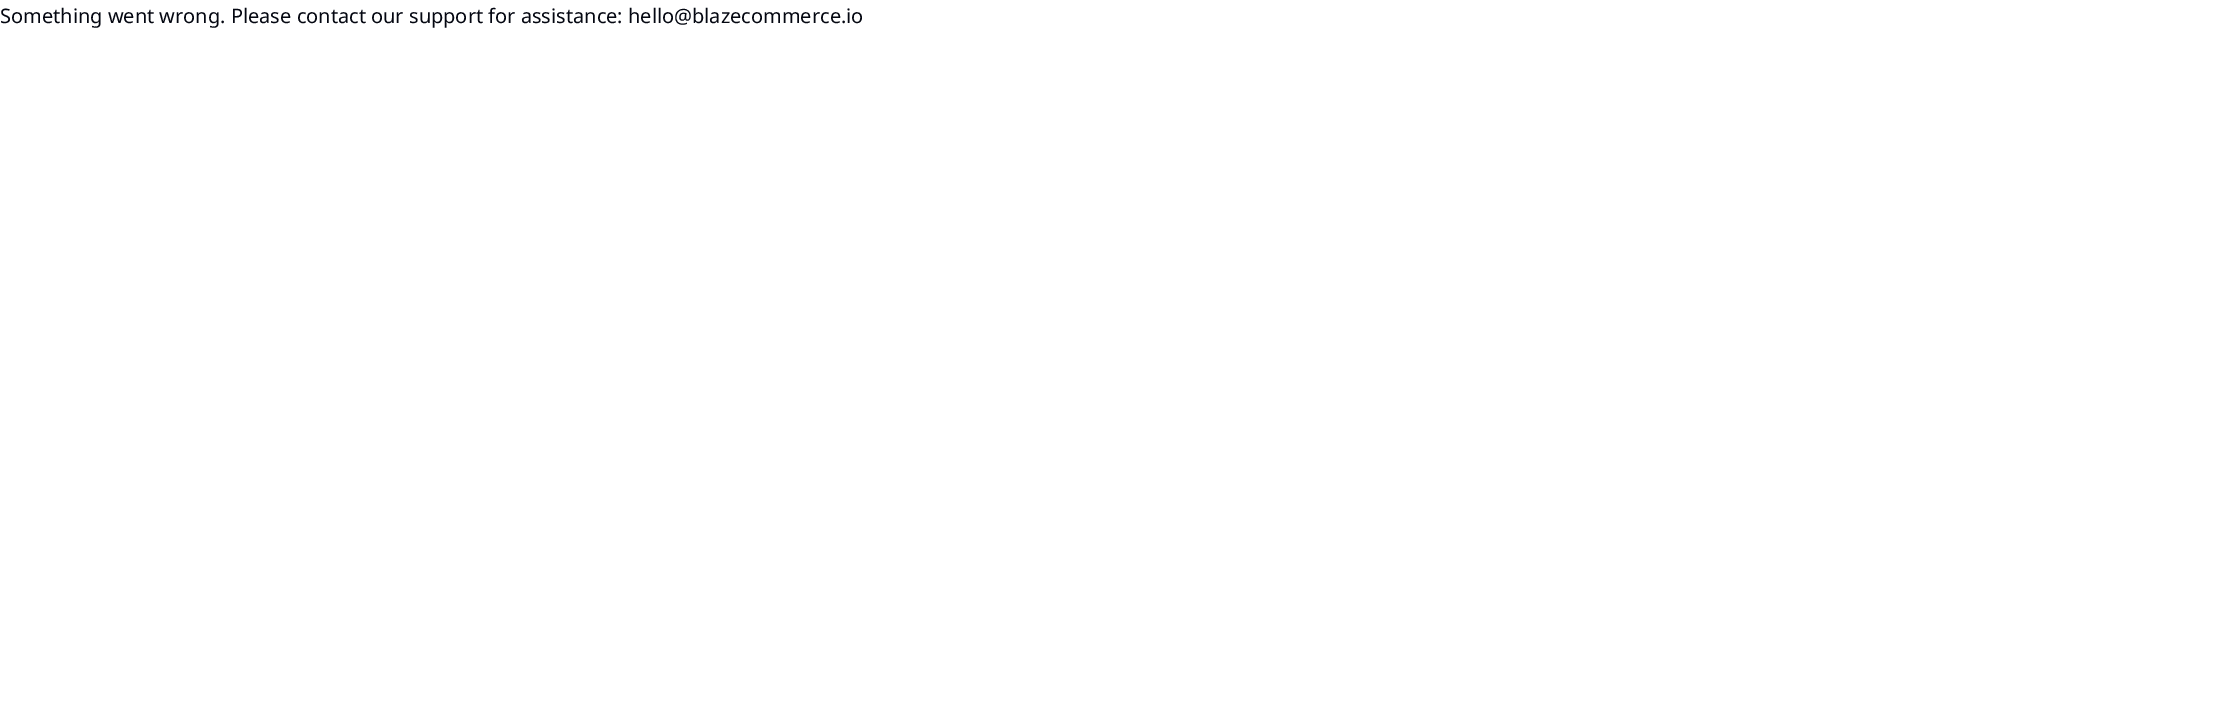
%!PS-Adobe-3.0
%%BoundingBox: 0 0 2230 722
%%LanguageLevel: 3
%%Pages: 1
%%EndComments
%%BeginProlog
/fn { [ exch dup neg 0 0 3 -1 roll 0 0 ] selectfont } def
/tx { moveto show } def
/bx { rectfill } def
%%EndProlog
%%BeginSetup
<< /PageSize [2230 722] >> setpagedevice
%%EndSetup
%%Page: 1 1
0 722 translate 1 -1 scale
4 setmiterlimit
1 setgray
0 0 2230 722 bx
/NotoSans-Regular 20 fn
0.016 0.027 0.067 setrgbcolor
(Something went wrong. Please contact our support for assistance: hello@blazecommerce.io) 0 23 tx
showpage
%%EOF
